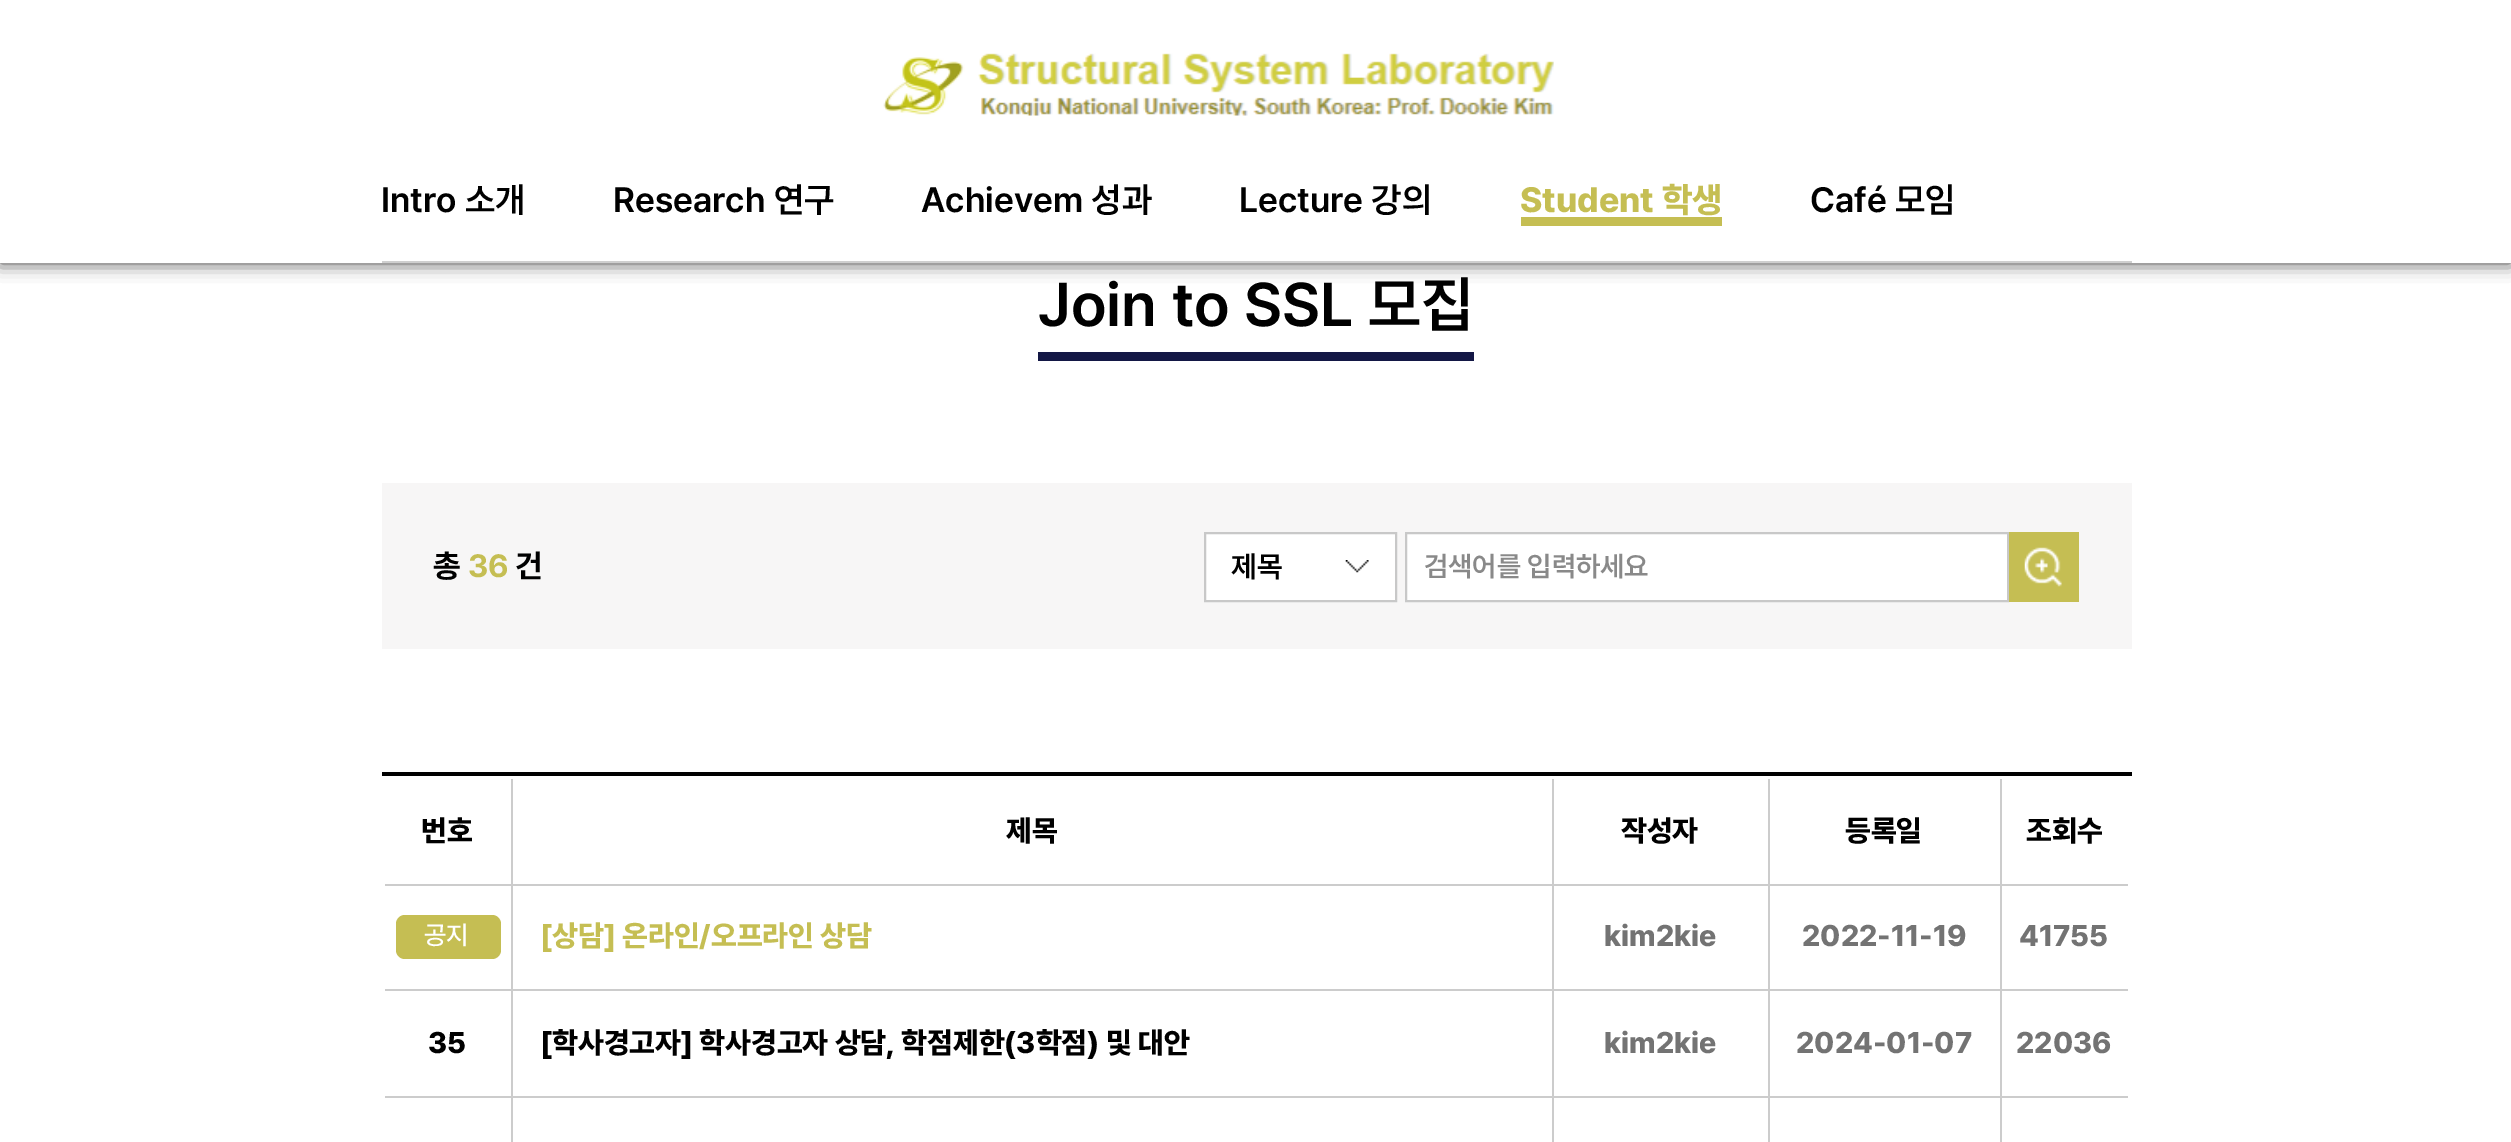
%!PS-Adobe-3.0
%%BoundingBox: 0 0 2511 1142
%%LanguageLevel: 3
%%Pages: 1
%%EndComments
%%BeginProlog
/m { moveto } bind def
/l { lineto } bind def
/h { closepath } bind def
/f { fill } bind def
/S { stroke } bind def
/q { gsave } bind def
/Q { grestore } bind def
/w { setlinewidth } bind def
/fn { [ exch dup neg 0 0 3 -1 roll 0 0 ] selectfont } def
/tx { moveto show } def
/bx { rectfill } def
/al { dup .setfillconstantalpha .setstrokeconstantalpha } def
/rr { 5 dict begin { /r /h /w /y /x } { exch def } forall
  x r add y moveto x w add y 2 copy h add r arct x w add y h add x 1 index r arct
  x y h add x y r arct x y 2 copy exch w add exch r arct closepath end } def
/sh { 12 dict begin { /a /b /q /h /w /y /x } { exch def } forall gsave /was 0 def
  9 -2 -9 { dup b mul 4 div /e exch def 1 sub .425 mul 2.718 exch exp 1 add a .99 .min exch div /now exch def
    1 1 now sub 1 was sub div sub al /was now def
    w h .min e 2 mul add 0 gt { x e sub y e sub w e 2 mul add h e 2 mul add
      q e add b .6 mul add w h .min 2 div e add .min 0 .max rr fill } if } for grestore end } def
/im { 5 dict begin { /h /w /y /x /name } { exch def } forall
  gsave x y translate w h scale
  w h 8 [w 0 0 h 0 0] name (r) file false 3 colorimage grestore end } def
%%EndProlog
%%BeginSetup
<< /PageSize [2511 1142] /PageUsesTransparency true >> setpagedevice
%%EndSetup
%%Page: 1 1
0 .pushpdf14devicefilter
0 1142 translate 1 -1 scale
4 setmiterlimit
1 setgray
0 0 2511 1142 bx
0.243 0.239 0.239 setrgbcolor
0 0 2511 263 0 9 1 sh
1 setgray
0 0 2511 263 bx
(image0.raw) 883 53 671 63 im
0.812 setgray
382 261 1750 2 bx
/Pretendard-SemiBold 35 fn
0 setgray
(Intro 소개) 381 212 tx
(Research 연구) 613 212 tx
(Achievem 성과) 921 212 tx
(Lecture 강의) 1239 212 tx
0.773 0.745 0.325 setrgbcolor
1521 217 201 9 bx
/Pretendard-ExtraBold 35 fn
(Student 학생) 1520 212 tx
/Pretendard-SemiBold 35 fn
0 setgray
(Café 모임) 1810 212 tx
0.075 0.09 0.271 setrgbcolor
1038 352 436 9 bx
/Pretendard-SemiBold 61.25 fn
0 setgray
(Join to SSL 모집) 1038 326 tx
0.969 0.965 0.965 setrgbcolor
382 483 1750 166 bx
/Pretendard-Bold 32 fn
0 setgray
(총) 433 577 tx
0.773 0.745 0.325 setrgbcolor
(36) 468 577 tx
0 setgray
(건) 515 577 tx
1 setgray
1205 533 m 1396 533 l 1396 601 l 1205 601 l h q f Q
0.784 setgray
2 w
S
(image1.raw) 1345 560 24 13 im
/Pretendard-SemiBold 29.75 fn
0 setgray
(제목) 1231 577 tx
1 setgray
1406 533 m 2008 533 l 2008 601 l 1406 601 l h q f Q
0.784 setgray
S
/Pretendard-SemiBold 28 fn
0.537 setgray
(검색어를 입력하세요) 1424 576 tx
0.773 0.745 0.325 setrgbcolor
2009 532 70 70 bx
(image2.raw) 2024 547 38 40 im
0 setgray
382 772 1750 4 bx
0.8 setgray
385 884 1743 2 bx
511 779 2 210 bx
/Pretendard-ExtraBold 29.75 fn
0 setgray
(번호) 421 841 tx
0.8 setgray
1552 779 2 210 bx
0 setgray
(제목) 1006 841 tx
0.8 setgray
1768 779 2 210 bx
0 setgray
(작성자) 1621 841 tx
0.8 setgray
2000 779 2 210 bx
0 setgray
(등록일) 1845 841 tx
(조회수) 2026 841 tx
0.8 setgray
385 989 1743 2 bx
0.773 0.745 0.325 setrgbcolor
396 915 105 44 9 rr f
/Pretendard-Medium 26 fn
1 setgray
(공지) 424 944 tx
/Pretendard-ExtraBold 29.75 fn
0.773 0.745 0.325 setrgbcolor
([상담] 온라인/오프라인 상담) 540 946 tx
0.451 setgray
(kim2kie) 1604 946 tx
(2022-11-19) 1802 946 tx
(41755) 2019 946 tx
0.8 setgray
385 1096 1743 2 bx
511 991 2 105 bx
0 setgray
(35) 428 1053 tx
0.8 setgray
1552 991 2 105 bx
q
541 1029 649 30 rectclip
0 setgray
([학사경고자] 학사경고자 상담, 학점제한\(3학점\) 및 대안) 540 1053 tx
Q
1768 991 2 105 bx
0.451 setgray
(kim2kie) 1604 1053 tx
0.8 setgray
2000 991 2 105 bx
0.451 setgray
(2024-01-07) 1796 1053 tx
(22036) 2016 1053 tx
0.8 setgray
511 1097 2 45 bx
1552 1097 2 45 bx
1768 1097 2 45 bx
2000 1097 2 45 bx
.poppdf14devicefilter showpage
%%EOF
